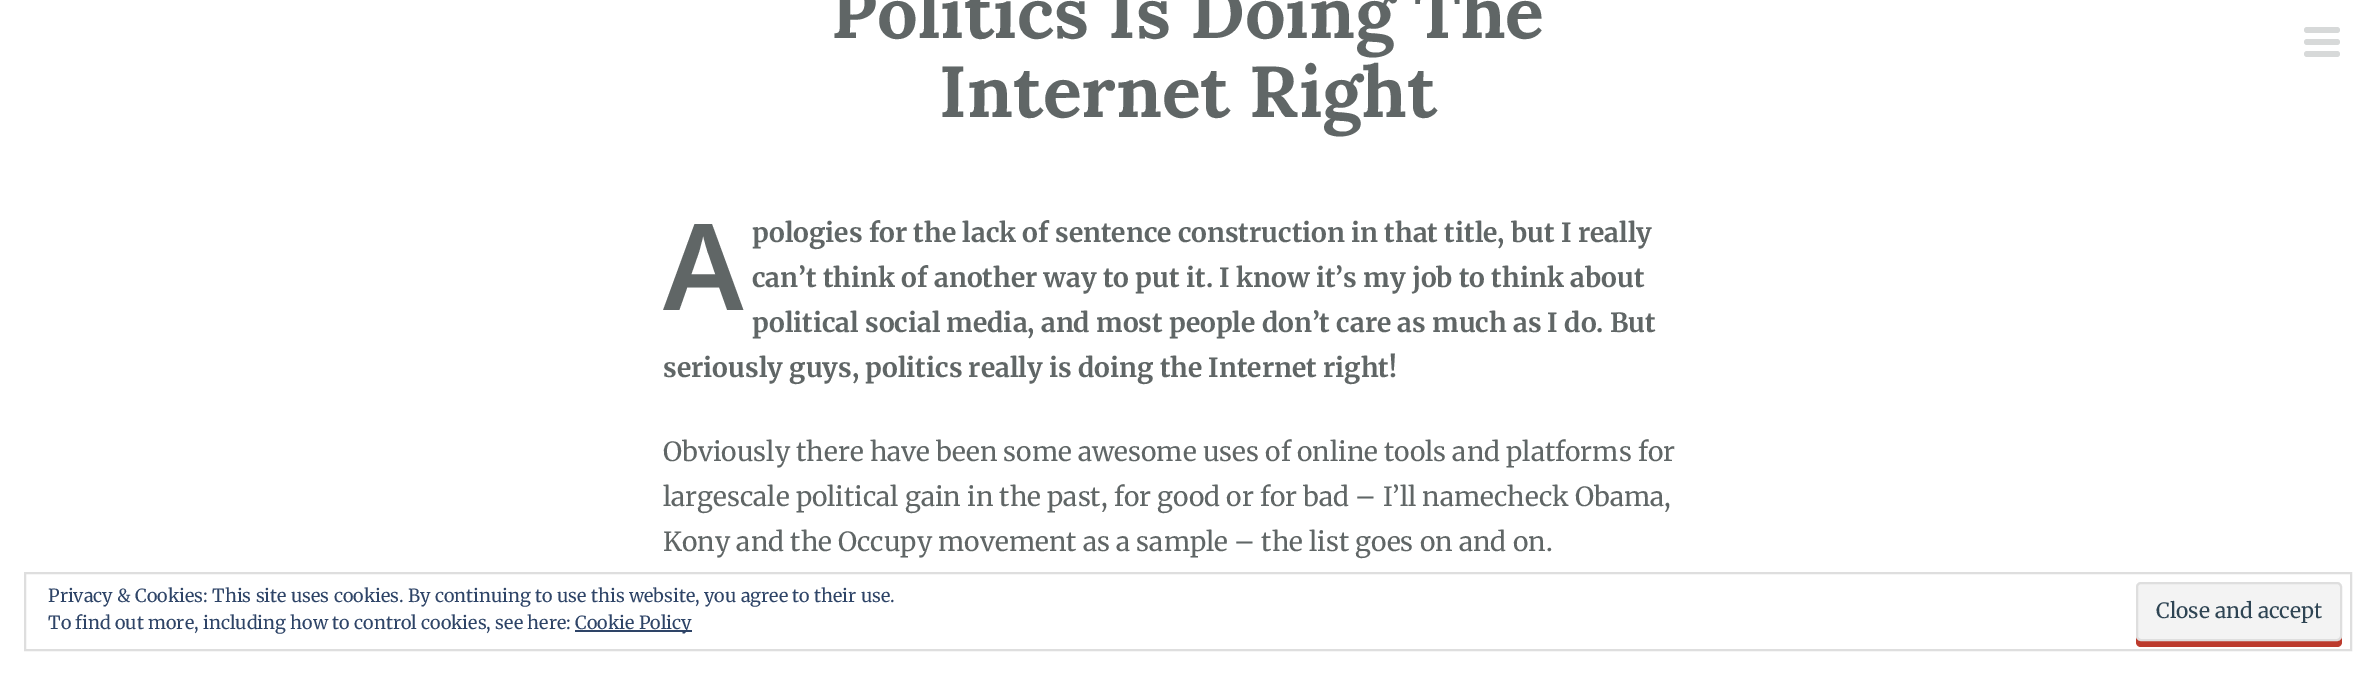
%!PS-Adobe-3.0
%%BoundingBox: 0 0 2376 674
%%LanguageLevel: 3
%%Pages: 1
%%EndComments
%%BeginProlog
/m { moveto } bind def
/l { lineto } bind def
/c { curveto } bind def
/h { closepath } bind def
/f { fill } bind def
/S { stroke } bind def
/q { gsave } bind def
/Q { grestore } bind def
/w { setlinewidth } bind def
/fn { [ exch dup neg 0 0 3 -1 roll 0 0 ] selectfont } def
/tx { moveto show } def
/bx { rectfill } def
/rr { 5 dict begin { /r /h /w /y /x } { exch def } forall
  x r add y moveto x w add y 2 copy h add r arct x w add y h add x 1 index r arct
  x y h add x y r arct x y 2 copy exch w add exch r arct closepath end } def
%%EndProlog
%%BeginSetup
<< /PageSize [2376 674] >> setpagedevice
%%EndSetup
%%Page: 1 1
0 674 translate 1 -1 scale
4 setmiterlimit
1 setgray
0 0 2376 674 bx
/Lora-Bold 72 fn
0.376 0.4 0.4 setrgbcolor
(Politics Is Doing The) 831 38 tx
(Internet Right) 939 117 tx
/NotoSans-SemiBold 120 fn
(A) 663 310 tx
/Merriweather-Bold 26.4 fn
(pologies for the lack of sentence construction in that title, but I really) 752 242 tx
(can’t think of another way to put it. I know it’s my job to think about) 752 287 tx
(political social media, and most people don’t care as much as I do. But) 752 332 tx
(seriously guys, politics really is doing the Internet right!) 663 377 tx
/Merriweather-Regular 26.4 fn
(Obviously there have been some awesome uses of online tools and platforms for) 663 461 tx
(largescale political gain in the past, for good or for bad – I’ll namecheck Obama,) 663 506 tx
(Kony and the Occupy movement as a sample – the list goes on and on.) 663 551 tx
0.843 0.851 0.851 setrgbcolor
2304 39 36 6 3 rr f
2304 27 36 6 3 rr f
2304 51 36 6 3 rr f
0.871 setgray
2 w
25 573 2326 77 rectstroke
/Merriweather-Regular 18 fn
0.18 0.267 0.404 setrgbcolor
(Privacy & Cookies: This site uses cookies. By continuing to use this website, you agree to their use.) 48 602 tx
(To find out more, including how to control cookies, see here:) 48 629 tx
575 630 117 2 bx
(Cookie Policy) 575 629 tx
0.737 0.231 0.176 setrgbcolor
2136 636 m 2136 642 l 2136 645 2138 647 2141 647 c 2337 647 l 2340 647 2342 645 2342 642 c 2342 593 l 2342 591 l 2342 636 l 2342 638 2339 640 2337 640 c 2140 640 l 2138 640 2136 638 2136 636 c h f
0.953 setgray
2137 583 204 57 4 rr q f Q
0.871 setgray
S
/Merriweather-Regular 21 fn
0.18 0.267 0.325 setrgbcolor
(Close and accept) 2156 618 tx
showpage
%%EOF
